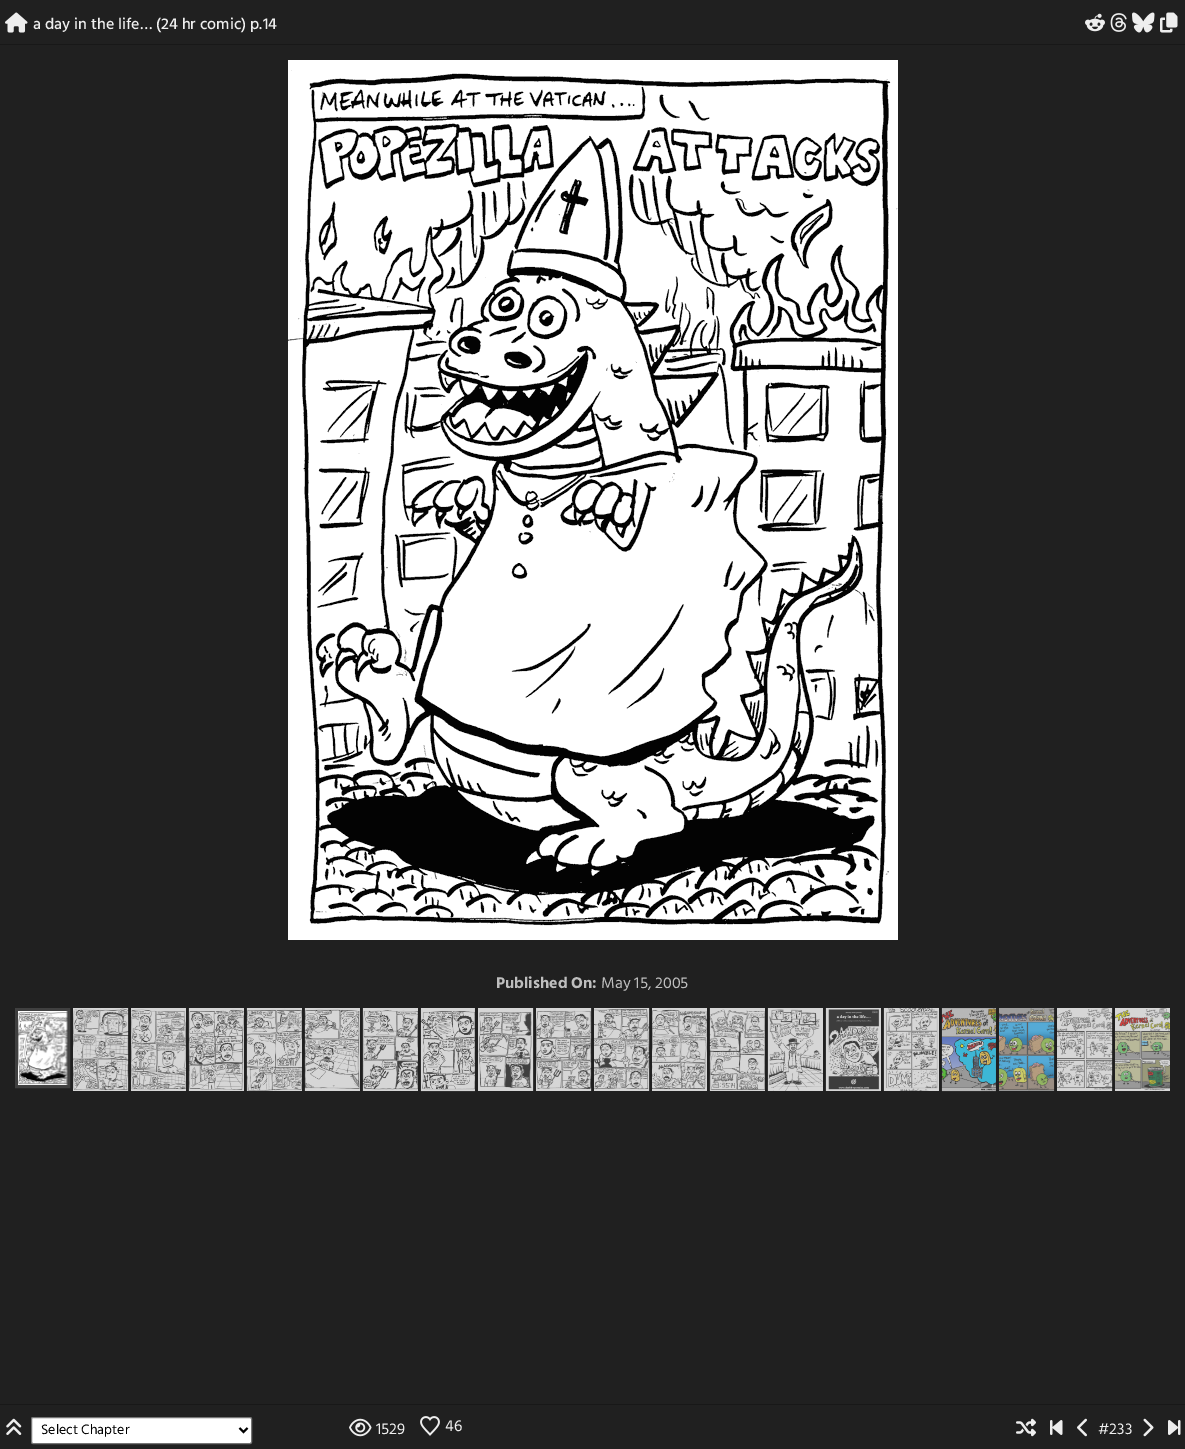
%!PS-Adobe-3.0
%%BoundingBox: 0 0 1185 1449
%%LanguageLevel: 3
%%Pages: 1
%%EndComments
%%BeginProlog
/m { moveto } bind def
/l { lineto } bind def
/f { fill } bind def
/S { stroke } bind def
/q { gsave } bind def
/Q { grestore } bind def
/w { setlinewidth } bind def
/fn { [ exch dup neg 0 0 3 -1 roll 0 0 ] selectfont } def
/tx { moveto show } def
/bx { rectfill } def
/rr { 5 dict begin { /r /h /w /y /x } { exch def } forall
  x r add y moveto x w add y 2 copy h add r arct x w add y h add x 1 index r arct
  x y h add x y r arct x y 2 copy exch w add exch r arct closepath end } def
/im { 5 dict begin { /h /w /y /x /name } { exch def } forall
  gsave x y translate w h scale
  w h 8 [w 0 0 h 0 0] name (r) file false 3 colorimage grestore end } def
%%EndProlog
%%BeginSetup
<< /PageSize [1185 1449] >> setpagedevice
%%EndSetup
%%Page: 1 1
0 1449 translate 1 -1 scale
4 setmiterlimit
0.125 setgray
0 0 1185 1449 bx
0.094 setgray
0 44 1185 1 bx
(image0.raw) 5 12 23 21 im
/Hind-Medium 16 fn
0.933 setgray
(a day in the life… \(24 hr comic\) p.14) 33 29 tx
(image1.raw) 1085 13 20 19 im
(image2.raw) 1110 13 17 19 im
(image3.raw) 1132 12 23 21 im
(image4.raw) 1160 12 18 21 im
(image5.raw) 288 60 610 880 im
/Hind-Bold 16 fn
0.745 setgray
(Published On:) 496 988 tx
/Hind-Regular 16 fn
(May 15, 2005) 601 988 tx
0.251 setgray
3 w
16.5 1009.5 52 77 rectstroke
(image6.raw) 18 1011 50 74 im
(image7.raw) 73 1008 56 83 im
(image8.raw) 131 1008 55 83 im
(image9.raw) 188 1008 56 83 im
(image10.raw) 246 1008 56 83 im
(image11.raw) 304 1008 56 83 im
(image12.raw) 362 1008 56 83 im
(image13.raw) 420 1008 55 84 im
(image14.raw) 478 1008 56 83 im
(image15.raw) 536 1008 56 83 im
(image16.raw) 594 1008 56 83 im
(image17.raw) 652 1008 55 83 im
(image18.raw) 709 1008 56 83 im
(image19.raw) 767 1008 56 83 im
(image20.raw) 825 1008 56 83 im
(image21.raw) 883 1008 56 83 im
(image22.raw) 941 1008 55 84 im
(image23.raw) 999 1008 56 83 im
(image24.raw) 1057 1008 56 83 im
(image25.raw) 1115 1008 55 83 im
0.094 setgray
0 1404 1185 1 bx
(image26.raw) 6 1418 16 17 im
1 setgray
31.5 1417.5 220 26 1.5 rr q f Q
0.463 setgray
1 w
S
0 setgray
2 w
239.5 1428 m 243.5 1432 l 247.5 1428 l S
/Hind-Regular 14 fn
(Select Chapter) 41 1434 tx
(image27.raw) 349 1418 23 19 im
/Hind-Regular 16 fn
0.933 setgray
(1529) 376 1434 tx
(image28.raw) 420 1416 20 20 im
(46) 445 1431 tx
(image29.raw) 1016 1418 20 19 im
(image30.raw) 1050 1420 13 15 im
(image31.raw) 1077 1418 10 19 im
(#233) 1098 1434 tx
(image32.raw) 1143 1418 11 19 im
(image33.raw) 1168 1420 13 15 im
showpage
%%EOF
